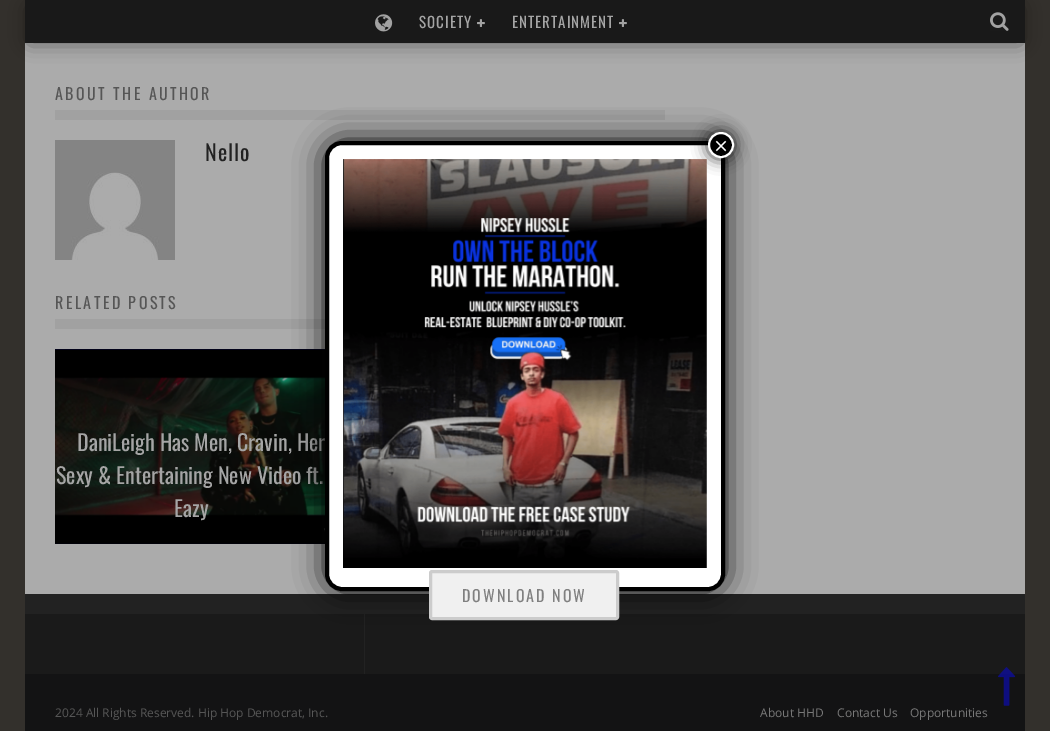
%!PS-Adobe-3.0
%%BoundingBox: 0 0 1050 731
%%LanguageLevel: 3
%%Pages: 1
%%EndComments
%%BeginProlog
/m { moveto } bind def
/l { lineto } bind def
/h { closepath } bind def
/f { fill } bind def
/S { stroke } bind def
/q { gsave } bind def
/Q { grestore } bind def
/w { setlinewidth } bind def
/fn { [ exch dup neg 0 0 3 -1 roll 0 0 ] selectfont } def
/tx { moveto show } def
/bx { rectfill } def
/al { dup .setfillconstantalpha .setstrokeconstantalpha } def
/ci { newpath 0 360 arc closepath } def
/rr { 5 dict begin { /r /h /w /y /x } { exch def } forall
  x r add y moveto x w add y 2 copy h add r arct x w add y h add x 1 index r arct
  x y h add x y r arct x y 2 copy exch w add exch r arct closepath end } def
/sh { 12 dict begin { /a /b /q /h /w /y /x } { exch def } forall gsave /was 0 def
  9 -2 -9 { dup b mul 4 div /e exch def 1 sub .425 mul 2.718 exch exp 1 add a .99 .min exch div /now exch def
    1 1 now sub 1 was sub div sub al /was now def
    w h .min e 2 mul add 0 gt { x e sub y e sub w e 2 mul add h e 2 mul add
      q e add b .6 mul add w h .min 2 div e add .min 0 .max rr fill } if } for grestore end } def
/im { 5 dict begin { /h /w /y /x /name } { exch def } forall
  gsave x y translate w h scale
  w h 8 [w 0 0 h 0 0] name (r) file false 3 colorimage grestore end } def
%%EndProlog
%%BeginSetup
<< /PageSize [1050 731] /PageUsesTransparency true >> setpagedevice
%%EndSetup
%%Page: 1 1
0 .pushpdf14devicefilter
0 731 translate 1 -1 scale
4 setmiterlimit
0.2 0.188 0.173 setrgbcolor
0 0 1050 731 bx
0.671 setgray
25 43 1000 551 bx
0.098 setgray
25 0 1000 43 bx
q
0 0 m 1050 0 l 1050 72 l 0 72 l h 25 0 m 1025 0 l 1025 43 l 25 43 l h eoclip newpath
0 setgray
30 8 990 33 0 10 0.6 sh
Q
(image0.raw) 375 14 18 18 im
/Oswald-Regular 15 fn
0.647 setgray
419 28 m 1 0 (SOCIETY) ashow
(image1.raw) 477 19 8 8 im
512 28 m 1 0 (ENTERTAINMENT) ashow
(image1.raw) 619 19 8 8 im
(image2.raw) 990 12 19 19 im
0.102 setgray
25 614 1000 60 bx
0.075 0.075 0.078 setrgbcolor
25 674 1000 57 bx
(image3.raw) 998 667 18 39 im
0.631 setgray
55 110 610 10 bx
/Oswald-Regular 16 fn
0.337 setgray
55 100 m 2.4 0 (ABOUT THE AUTHOR) ashow
(image4.raw) 55 140 120 120 im
/Oswald-Regular 22 fn
0.133 setgray
205 161 m 1 0 (Nello) ashow
0.631 setgray
55 319 270 10 bx
/Oswald-Regular 16 fn
0.337 setgray
55 309 m 2.4 0 (RELATED POSTS) ashow
(image5.raw) 55 349 270 195 im
/Oswald-Regular 22 fn
0.647 setgray
(DaniLeigh Has Men, Cravin, Her) 77 451 tx
(Sexy & Entertaining New Video ft.) 56 484 tx
(Eazy) 174 517 tx
0.133 setgray
25 594 1000 20 bx
364 614 1 60 bx
/OpenSans-Regular 12 fn
0.337 setgray
(2024 All Rights Reserved. Hip Hop Democrat, Inc.) 55 717 tx
0.471 setgray
(About HHD) 760 717 tx
(Contact Us) 837 717 tx
(Opportunities) 910 717 tx
0.008 setgray
325 141 400 450 17 15 1 sh
1 setgray
327 143 396 446 15 rr q f Q
0 setgray
4 w
S
(image6.raw) 343 159 364 409 im
0.008 setgray
707 131 28 28 14 7.5 0.75 sh
0 setgray
721 145 12 ci q f Q
1 setgray
2 w
S
/LiberationSans-Regular 24 fn
(×) 714 154 tx
0.941 setgray
430.5 571.5 187 47 1.5 rr q f Q
0.8 setgray
3 w
S
/Oswald-Regular 16 fn
0.502 setgray
462 602 m 2 0 (DOWNLOAD NOW) ashow
.poppdf14devicefilter showpage
%%EOF
